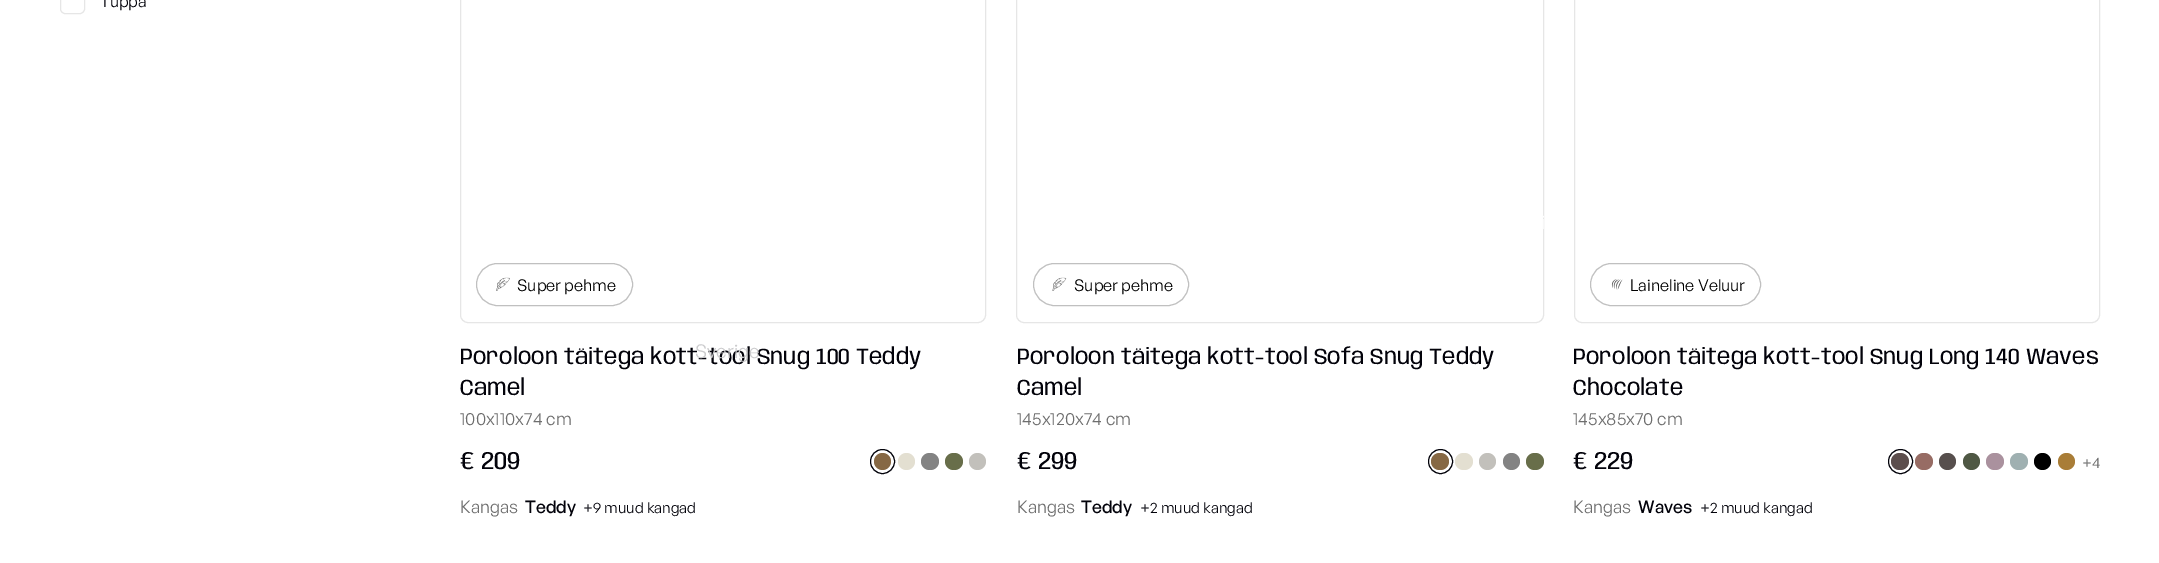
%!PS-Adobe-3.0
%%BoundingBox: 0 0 2159 563
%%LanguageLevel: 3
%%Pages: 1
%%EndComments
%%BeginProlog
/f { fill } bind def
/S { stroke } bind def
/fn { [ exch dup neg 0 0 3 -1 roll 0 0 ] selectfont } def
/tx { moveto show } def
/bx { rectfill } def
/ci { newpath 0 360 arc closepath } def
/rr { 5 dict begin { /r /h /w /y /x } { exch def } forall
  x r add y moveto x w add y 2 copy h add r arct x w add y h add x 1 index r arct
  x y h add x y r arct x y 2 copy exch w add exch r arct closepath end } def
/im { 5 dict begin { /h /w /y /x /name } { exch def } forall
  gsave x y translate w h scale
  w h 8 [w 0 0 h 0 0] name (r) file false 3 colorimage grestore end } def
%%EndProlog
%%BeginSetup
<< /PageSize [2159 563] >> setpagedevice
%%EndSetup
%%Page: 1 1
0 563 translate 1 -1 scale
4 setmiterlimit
1 setgray
0 0 2159 563 bx
0.902 setgray
60.5 -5.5 24 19 4.5 rr S
/GeneralSans-Regular 16.25 fn
0.008 0.008 0.039 setrgbcolor
(Tuppa) 100 7 tx
0.902 setgray
460.5 -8.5 525 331 7.5 rr S
0.753 setgray
476.5 263.5 156 42 21 rr S
(image0.raw) 496 277 14 14 im
0 setgray
(Super pehme) 517 291 tx
/Anybody-Regular 22.5 fn
0.008 0.008 0.039 setrgbcolor
(Poroloon täitega kott-tool Snug 100 Teddy) 460 364 tx
(Camel) 460 395 tx
/GeneralSans-Regular 17.5 fn
0.431 setgray
(100x110x74 cm) 460 425 tx
/Anybody-Regular 25 fn
0.008 0.008 0.039 setrgbcolor
(€ 209) 460 469 tx
0.525 0.408 0.267 setrgbcolor
882.5 461.5 8.5 ci f
0.008 0.008 0.039 setrgbcolor
882.5 461.5 12 ci S
0.89 0.875 0.82 setrgbcolor
906.5 461.5 8.5 ci f
0.514 setgray
921 453 18 17 8.5 rr f
0.408 0.431 0.29 setrgbcolor
945 453 18 17 8.5 rr f
0.761 0.753 0.733 setrgbcolor
977.5 461.5 8.5 ci f
/GeneralSans-Regular 17.5 fn
0.431 setgray
(Kangas) 460 513 tx
/GeneralSans-Medium 17.5 fn
0.008 0.008 0.039 setrgbcolor
(Teddy) 525 513 tx
/GeneralSans-Regular 15 fn
(+9 muud kangad) 583 513 tx
0.902 setgray
1016.5 -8.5 527 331 7.5 rr S
0.753 setgray
1033.5 263.5 155 42 21 rr S
(image1.raw) 1052 277 15 14 im
/GeneralSans-Regular 16.25 fn
0 setgray
(Super pehme) 1074 291 tx
/Anybody-Regular 22.5 fn
0.008 0.008 0.039 setrgbcolor
(Poroloon täitega kott-tool Sofa Snug Teddy) 1017 364 tx
(Camel) 1017 395 tx
/GeneralSans-Regular 17.5 fn
0.431 setgray
(145x120x74 cm) 1017 425 tx
/Anybody-Regular 25 fn
0.008 0.008 0.039 setrgbcolor
(€ 299) 1017 469 tx
0.525 0.408 0.267 setrgbcolor
1431 453 18 17 8.5 rr f
0.008 0.008 0.039 setrgbcolor
1440.5 461.5 12 ci S
0.89 0.875 0.82 setrgbcolor
1455 453 18 17 8.5 rr f
0.761 0.753 0.733 setrgbcolor
1487.5 461.5 8.5 ci f
0.514 setgray
1511.5 461.5 8.5 ci f
0.408 0.431 0.29 setrgbcolor
1526 453 18 17 8.5 rr f
/GeneralSans-Regular 17.5 fn
0.431 setgray
(Kangas) 1017 513 tx
/GeneralSans-Medium 17.5 fn
0.008 0.008 0.039 setrgbcolor
(Teddy) 1081 513 tx
/GeneralSans-Regular 15 fn
(+2 muud kangad) 1140 513 tx
0.902 setgray
1574.5 -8.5 525 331 7.5 rr S
0.753 setgray
1590.5 263.5 170 42 21 rr S
(image2.raw) 1611 279 12 11 im
/GeneralSans-Regular 16.25 fn
0 setgray
(Laineline Veluur) 1630 291 tx
/Anybody-Regular 22.5 fn
0.008 0.008 0.039 setrgbcolor
(Poroloon täitega kott-tool Snug Long 140 Waves) 1573 364 tx
(Chocolate) 1573 395 tx
/GeneralSans-Regular 17.5 fn
0.431 setgray
(145x85x70 cm) 1573 425 tx
/Anybody-Regular 25 fn
0.008 0.008 0.039 setrgbcolor
(€ 229) 1573 469 tx
0.361 0.306 0.302 setrgbcolor
1891 453 18 17 8.5 rr f
0.008 0.008 0.039 setrgbcolor
1900.5 461.5 12 ci S
0.592 0.424 0.392 setrgbcolor
1915 453 18 17 8.5 rr f
0.341 0.31 0.302 setrgbcolor
1947.5 461.5 8.5 ci f
0.31 0.345 0.267 setrgbcolor
1971.5 461.5 8.5 ci f
0.667 0.569 0.62 setrgbcolor
1986 453 18 17 8.5 rr f
0.624 0.69 0.694 setrgbcolor
2010 453 18 17 8.5 rr f
0 setgray
2042.5 461.5 8.5 ci f
0.663 0.49 0.216 setrgbcolor
2066.5 461.5 8.5 ci f
/GeneralSans-Regular 15 fn
0.4 setgray
(+4) 2082 468 tx
/GeneralSans-Regular 17.5 fn
0.431 setgray
(Kangas) 1573 513 tx
/GeneralSans-Medium 17.5 fn
0.008 0.008 0.039 setrgbcolor
(Waves) 1638 513 tx
/GeneralSans-Regular 15 fn
(+2 muud kangad) 1700 513 tx
/GeneralSans-Regular 19 fn
0.996 setgray
(i) 1541 229 tx
0.796 0.796 0.804 setrgbcolor
(Sverige) 695 358 tx
showpage
%%EOF
